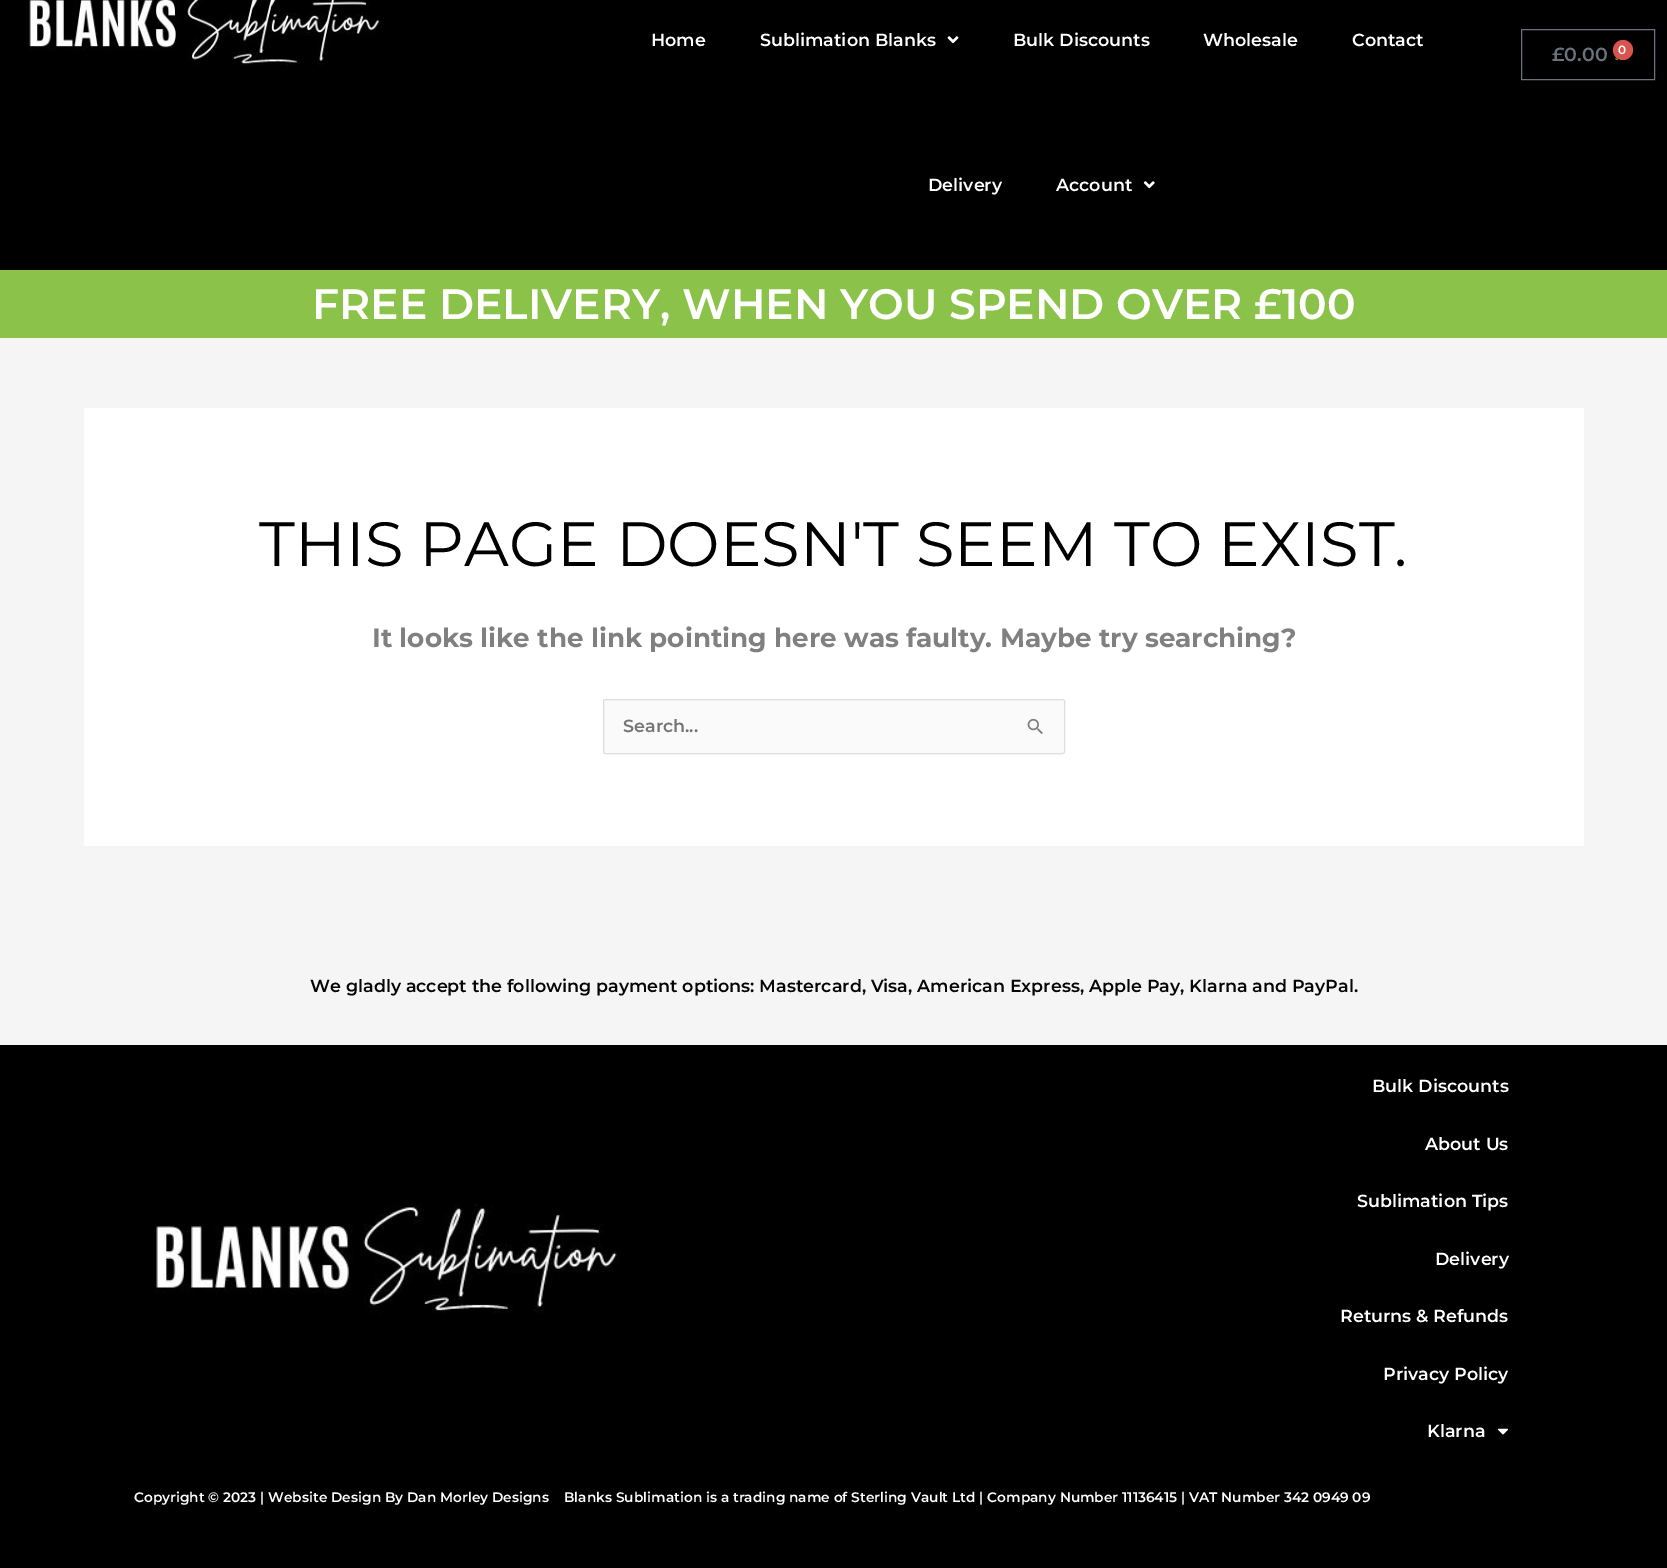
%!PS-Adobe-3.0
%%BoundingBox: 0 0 1667 1568
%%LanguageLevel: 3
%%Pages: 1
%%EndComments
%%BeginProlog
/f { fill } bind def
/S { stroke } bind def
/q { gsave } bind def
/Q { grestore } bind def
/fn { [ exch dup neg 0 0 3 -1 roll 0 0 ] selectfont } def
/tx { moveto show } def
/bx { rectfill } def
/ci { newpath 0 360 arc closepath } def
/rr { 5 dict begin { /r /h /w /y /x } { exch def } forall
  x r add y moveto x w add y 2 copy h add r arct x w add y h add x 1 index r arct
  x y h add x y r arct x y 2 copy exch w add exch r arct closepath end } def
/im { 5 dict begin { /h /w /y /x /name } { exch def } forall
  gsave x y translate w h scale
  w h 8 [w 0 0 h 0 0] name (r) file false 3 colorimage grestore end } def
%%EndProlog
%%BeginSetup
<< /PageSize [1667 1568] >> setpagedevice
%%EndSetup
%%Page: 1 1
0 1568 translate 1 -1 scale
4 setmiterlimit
0.961 setgray
0 0 1667 1568 bx
0 setgray
0 0 1667 270 bx
(image0.raw) 28 0 356 66 im
/Montserrat-SemiBold 17.5 fn
1 setgray
(Home) 651 46 tx
(Sublimation Blanks) 760 46 tx
(image1.raw) 947 36 12 8 im
(Bulk Discounts) 1013 46 tx
(Wholesale) 1203 46 tx
(Contact) 1352 46 tx
(Delivery) 928 191 tx
(Account) 1056 191 tx
(image2.raw) 1143 181 12 8 im
0.412 0.447 0.49 setrgbcolor
1521.5 29.5 133 50 rectstroke
/Montserrat-SemiBold 19 fn
(£0.00) 1552 61 tx
(image3.raw) 1612 49 11 12 im
0.851 0.325 0.31 setrgbcolor
1623 50 10 ci f
/Montserrat-SemiBold 12 fn
1 setgray
(0) 1618 54 tx
0.545 0.765 0.29 setrgbcolor
0 270 1667 68 bx
/Montserrat-SemiBold 42.5 fn
1 setgray
(FREE DELIVERY, WHEN YOU SPEND OVER £100) 312 319 tx
84 408 1500 438 bx
/Montserrat-Regular 62.5 fn
0 setgray
(THIS PAGE DOESN'T SEEM TO EXIST.) 259 566 tx
/Montserrat-Bold 26.25 fn
0.502 setgray
(It looks like the link pointing here was faulty. Maybe try searching?) 372 647 tx
0.98 setgray
603.5 699.5 461 54 2 rr q f Q
0.867 setgray
S
/Montserrat-SemiBold 17.5 fn
0.459 setgray
(Search...) 623 732 tx
(image4.raw) 1027 718 16 16 im
0.024 setgray
(We gladly accept the following payment options: Mastercard, Visa, American Express, Apple Pay, Klarna and PayPal.) 310 992 tx
0 setgray
0 1045 1667 523 bx
(image5.raw) 154 1204 466 110 im
1 setgray
(Bulk Discounts) 1372 1092 tx
(About Us) 1425 1150 tx
(Sublimation Tips) 1357 1207 tx
(Delivery) 1435 1265 tx
(Returns & Refunds) 1340 1322 tx
(Privacy Policy) 1383 1380 tx
(Klarna) 1427 1437 tx
(image6.raw) 1497 1428 11 7 im
/Montserrat-SemiBold 13.75 fn
(Copyright © 2023 | Website Design By Dan Morley Designs) 134 1502 tx
(Blanks Sublimation is a trading name of Sterling Vault Ltd | Company Number 11136415 | VAT Number 342 0949 09) 564 1502 tx
showpage
%%EOF
